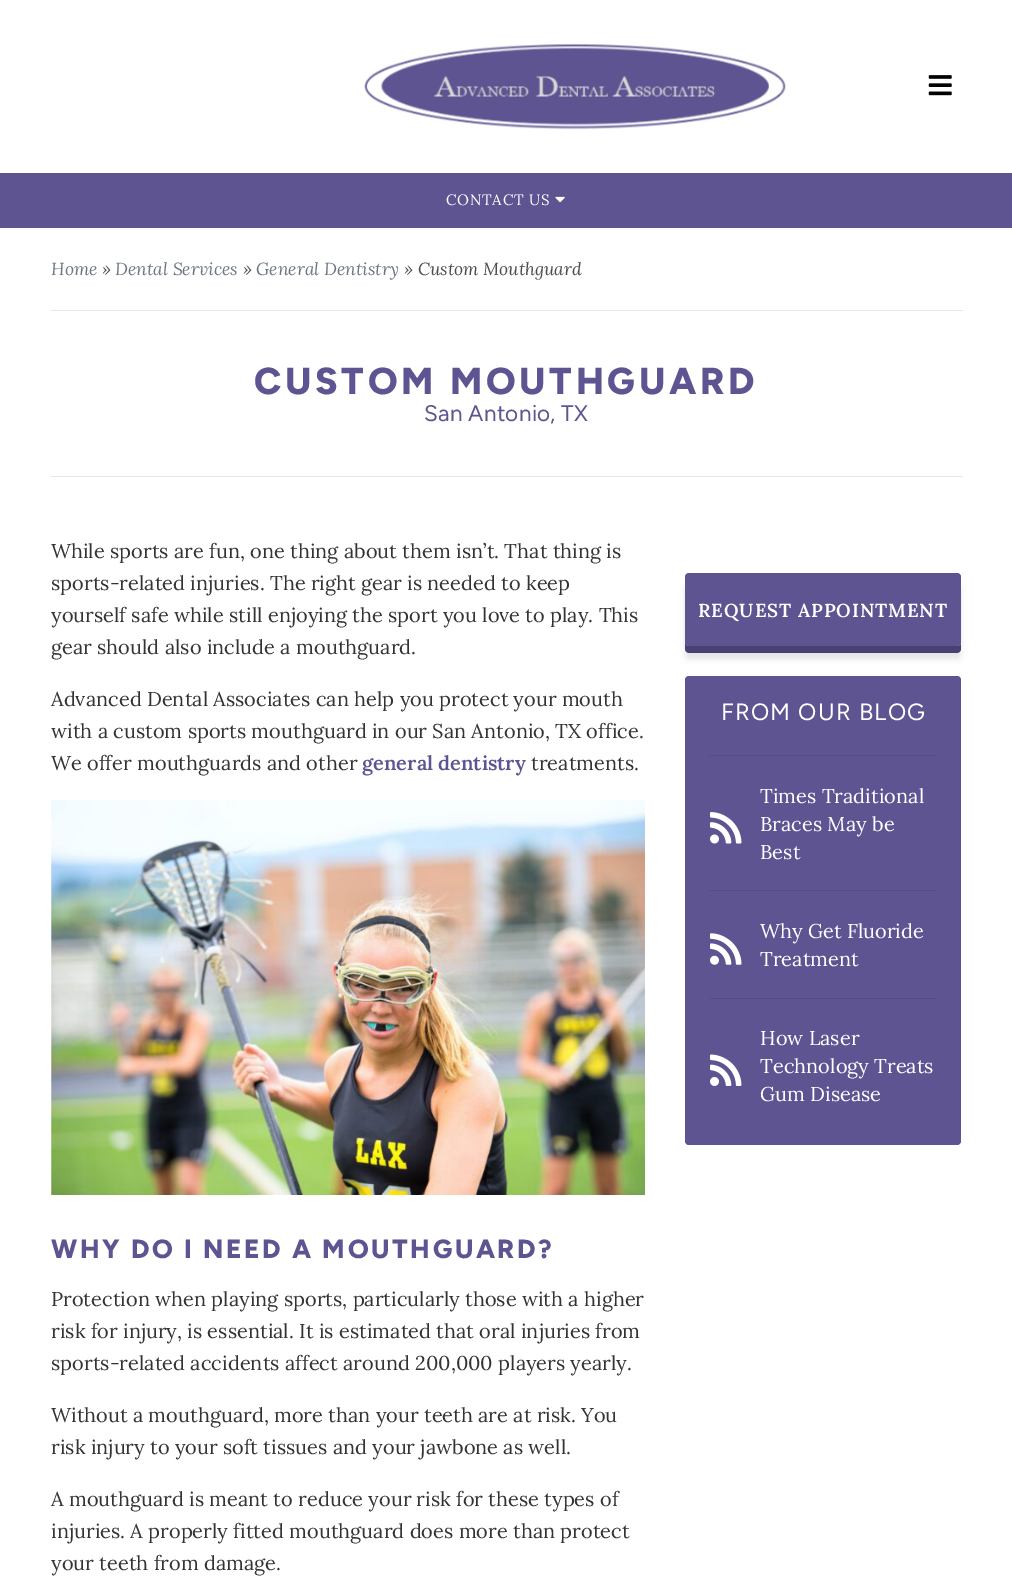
%!PS-Adobe-3.0
%%BoundingBox: 0 0 1012 1582
%%LanguageLevel: 3
%%Pages: 1
%%EndComments
%%BeginProlog
/m { moveto } bind def
/l { lineto } bind def
/c { curveto } bind def
/h { closepath } bind def
/f { fill } bind def
/fn { [ exch dup neg 0 0 3 -1 roll 0 0 ] selectfont } def
/tx { moveto show } def
/bx { rectfill } def
/al { dup .setfillconstantalpha .setstrokeconstantalpha } def
/rr { 5 dict begin { /r /h /w /y /x } { exch def } forall
  x r add y moveto x w add y 2 copy h add r arct x w add y h add x 1 index r arct
  x y h add x y r arct x y 2 copy exch w add exch r arct closepath end } def
/sh { 12 dict begin { /a /b /q /h /w /y /x } { exch def } forall gsave /was 0 def
  9 -2 -9 { dup b mul 4 div /e exch def 1 sub .425 mul 2.718 exch exp 1 add a .99 .min exch div /now exch def
    1 1 now sub 1 was sub div sub al /was now def
    w h .min e 2 mul add 0 gt { x e sub y e sub w e 2 mul add h e 2 mul add
      q e add b .6 mul add w h .min 2 div e add .min 0 .max rr fill } if } for grestore end } def
/im { 5 dict begin { /h /w /y /x /name } { exch def } forall
  gsave x y translate w h scale
  w h 8 [w 0 0 h 0 0] name (r) file false 3 colorimage grestore end } def
%%EndProlog
%%BeginSetup
<< /PageSize [1012 1582] /PageUsesTransparency true >> setpagedevice
%%EndSetup
%%Page: 1 1
0 .pushpdf14devicefilter
0 1582 translate 1 -1 scale
4 setmiterlimit
1 setgray
0 0 1012 1582 bx
(image0.raw) 364 44 422 86 im
(image1.raw) 928 75 24 21 im
0.365 0.329 0.569 setrgbcolor
0 173 1012 55 bx
/Lora-Regular 15 fn
1 setgray
446 205 m 0.75 0 (CONTACT US) ashow
(image2.raw) 555 196 10 7 im
0.902 setgray
51 310 912 1 bx
/Lora-Italic 17.5 fn
0.424 0.463 0.518 setrgbcolor
(Home) 51 275 tx
0.298 setgray
(») 102 275 tx
0.424 0.463 0.518 setrgbcolor
(Dental Services) 115 275 tx
0.298 setgray
(») 243 275 tx
0.424 0.463 0.518 setrgbcolor
(General Dentistry) 256 275 tx
0.298 setgray
(» Custom Mouthguard) 404 275 tx
0.902 setgray
51 476 912 1 bx
/Figtree-ExtraBold 37.5 fn
0.365 0.329 0.569 setrgbcolor
254 394 m 3.75 0 (CUSTOM MOUTHGUARD) ashow
/Figtree-Regular 22.5 fn
424 421 m 0.25 0 (San Antonio, TX) ashow
/Lora-Regular 20 fn
0.2 setgray
(While sports are fun, one thing about them isn’t. That thing is) 51 558 tx
(sports-related injuries. The right gear is needed to keep) 51 590 tx
(yourself safe while still enjoying the sport you love to play. This) 51 622 tx
(gear should also include a mouthguard.) 51 654 tx
(Advanced Dental Associates can help you protect your mouth) 51 706 tx
(with a custom sports mouthguard in our San Antonio, TX office.) 51 738 tx
(We offer mouthguards and other) 51 770 tx
/Lora-SemiBold 20 fn
0.365 0.329 0.569 setrgbcolor
(general dentistry) 362 770 tx
/Lora-Regular 20 fn
0.2 setgray
(treatments.) 531 770 tx
(image3.raw) 51 800 594 395 im
/Figtree-ExtraBold 26.25 fn
0.365 0.329 0.569 setrgbcolor
51 1258 m 2.6 0 (WHY DO I NEED A MOUTHGUARD?) ashow
/Lora-Regular 20 fn
0.2 setgray
(Protection when playing sports, particularly those with a higher) 51 1306 tx
(risk for injury, is essential. It is estimated that oral injuries from) 51 1338 tx
(sports-related accidents affect around 200,000 players yearly.) 51 1370 tx
(Without a mouthguard, more than your teeth are at risk. You) 51 1422 tx
(risk injury to your soft tissues and your jawbone as well.) 51 1454 tx
(A mouthguard is meant to reduce your risk for these types of) 51 1506 tx
(injuries. A properly fitted mouthguard does more than protect) 51 1538 tx
(your teeth from damage.) 51 1570 tx
0 setgray
685 585 276 74 4 3 0.1 sh
0.282 0.255 0.443 setrgbcolor
685 642 m 685 649 l 685 651 687 653 689 653 c 957 653 l 959 653 961 651 961 649 c 961 644 l 960 645 959 646 958 646 c 689 646 l 687 646 685 645 685 642 c h f
0.365 0.329 0.569 setrgbcolor
685 573 276 73 4 rr f
/Lora-SemiBold 18.75 fn
1 setgray
698 617 m 0.9 0 (REQUEST APPOINTMENT) ashow
0.365 0.329 0.569 setrgbcolor
685 676 276 469 4 rr f
/Figtree-Regular 23.5 fn
1 setgray
721 720 m 1.2 0 (FROM OUR BLOG) ashow
0.329 0.298 0.514 setrgbcolor
710 755 226 1 bx
/Lora-Regular 20 fn
1 setgray
(Times Traditional) 760 803 tx
(image4.raw) 710 812 32 32 im
(Braces May be) 760 831 tx
(Best) 760 859 tx
0.329 0.298 0.514 setrgbcolor
710 890 226 1 bx
(image5.raw) 710 933 32 32 im
1 setgray
(Why Get Fluoride) 760 938 tx
(Treatment) 760 966 tx
0.329 0.298 0.514 setrgbcolor
710 998 226 1 bx
1 setgray
(How Laser) 760 1045 tx
(image6.raw) 710 1054 32 32 im
(Technology Treats) 760 1073 tx
(Gum Disease) 760 1101 tx
.poppdf14devicefilter showpage
%%EOF
